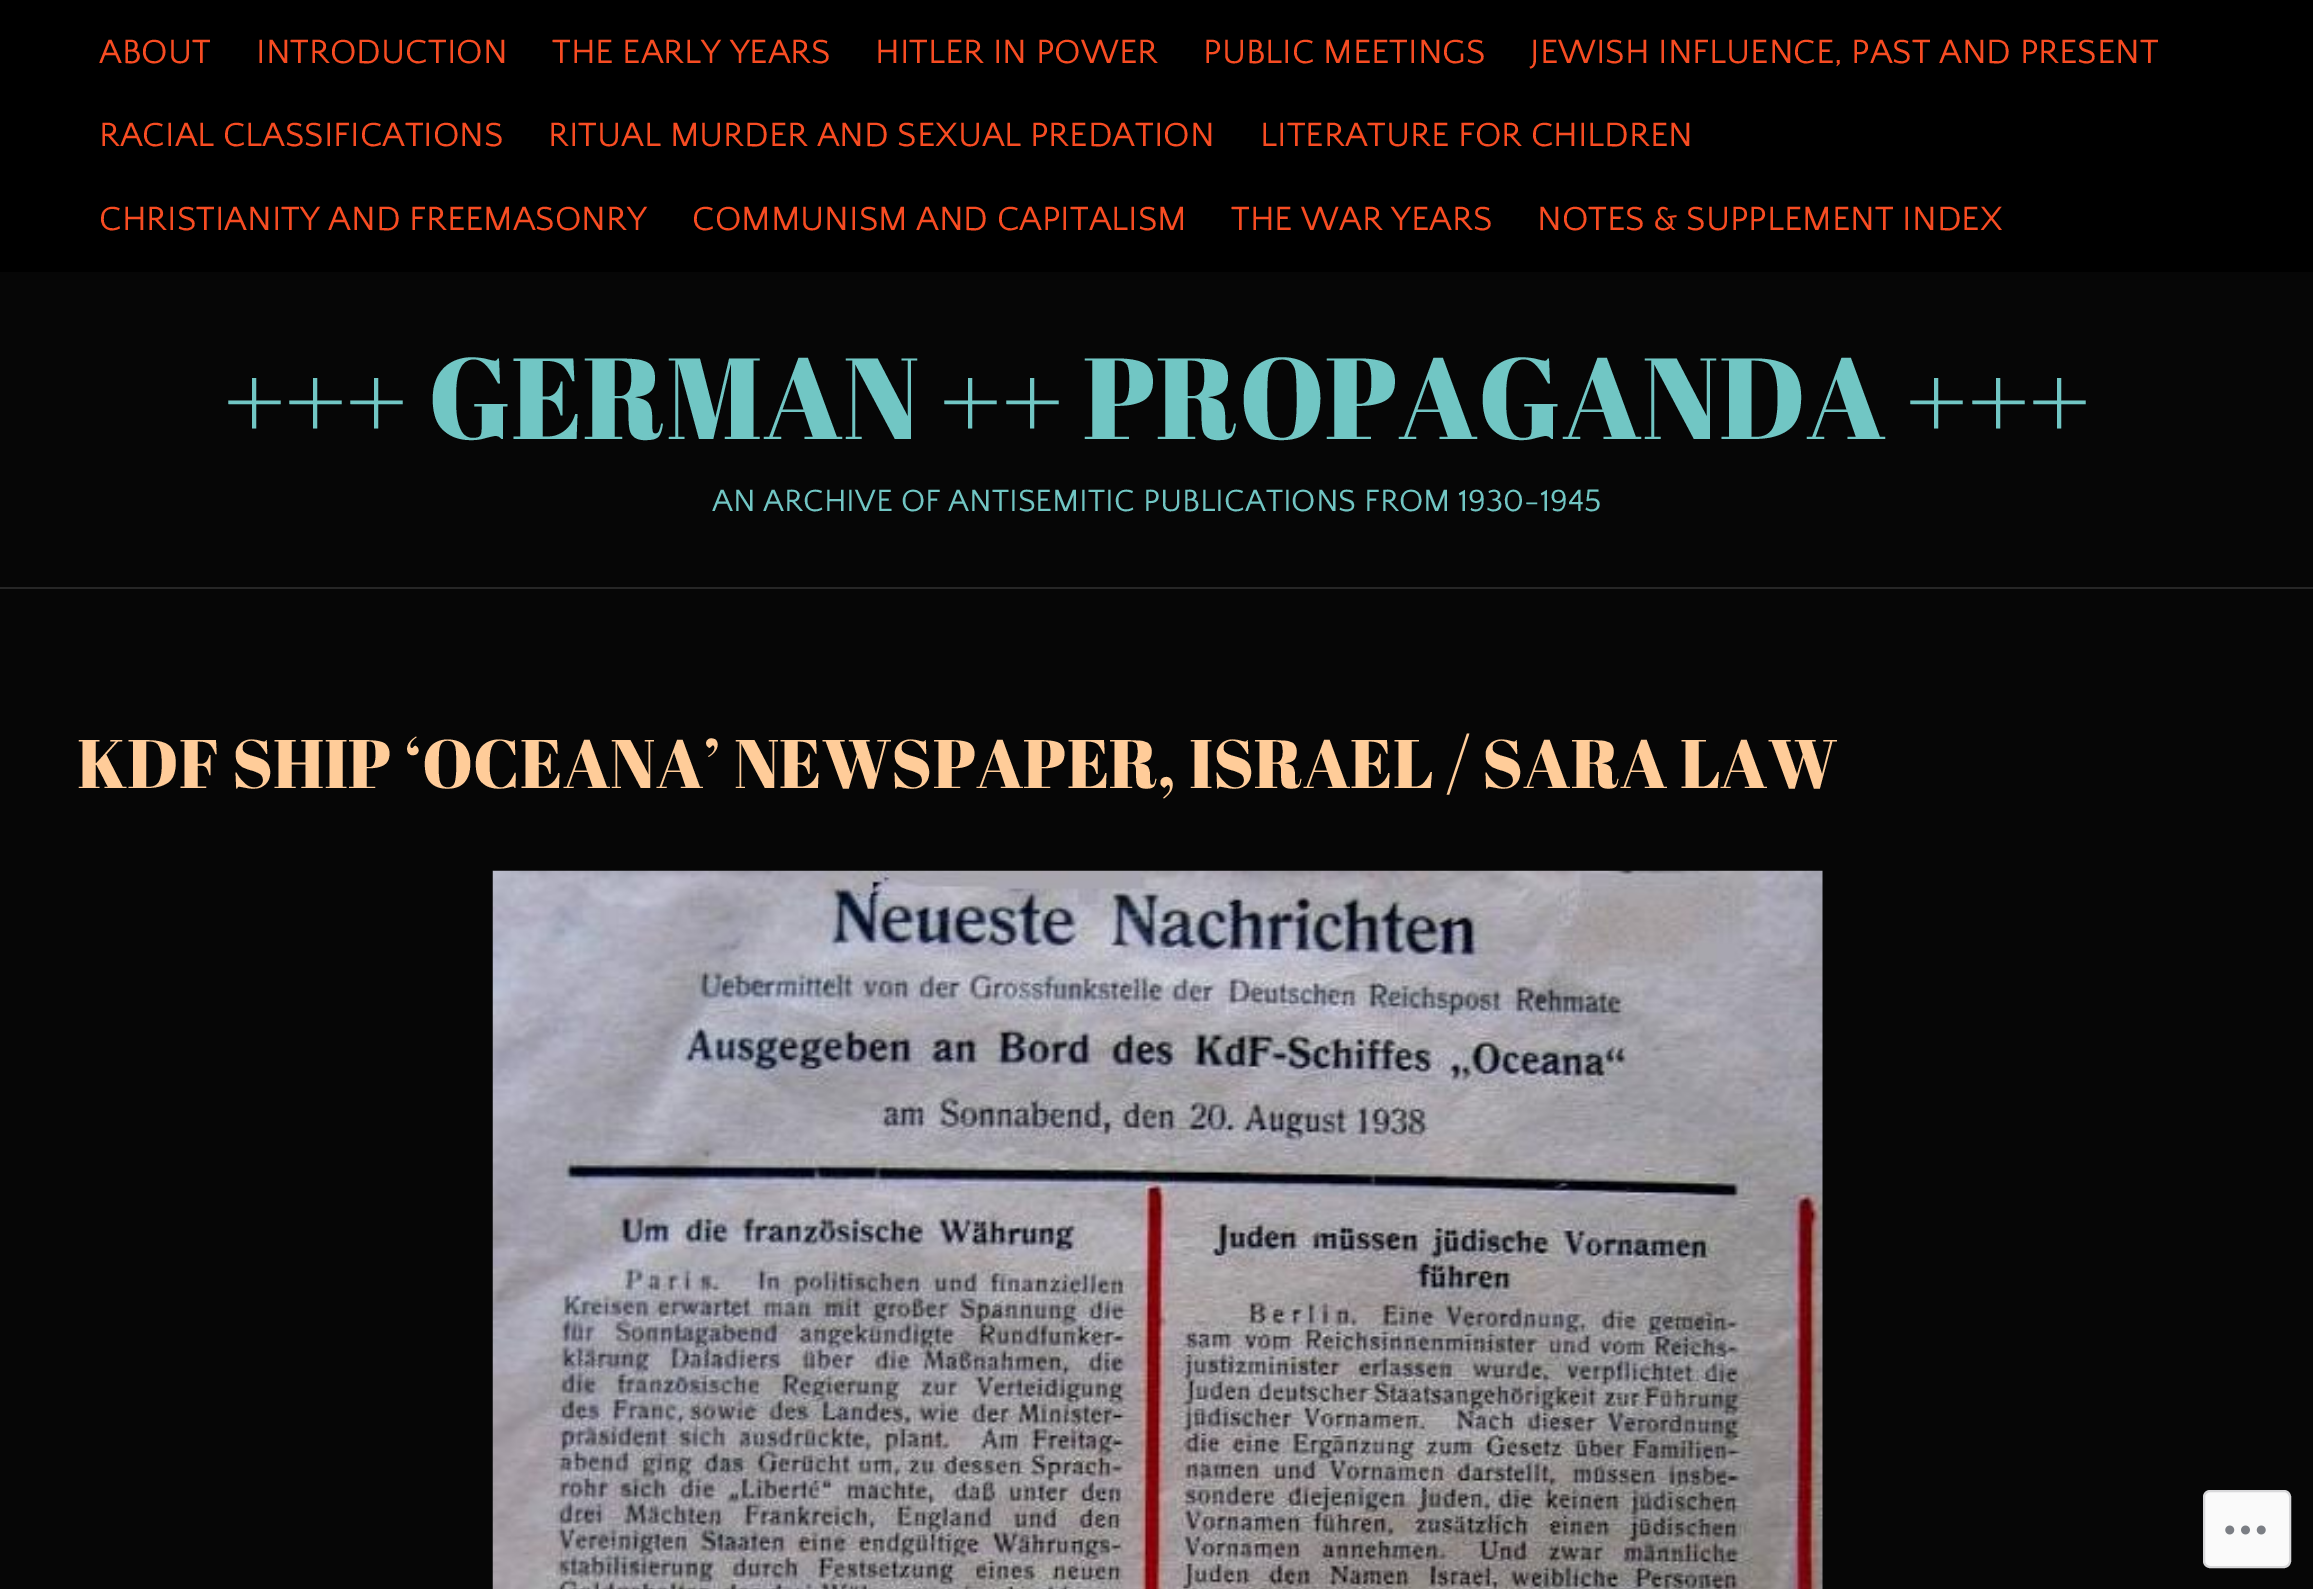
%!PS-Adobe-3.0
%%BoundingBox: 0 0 2313 1589
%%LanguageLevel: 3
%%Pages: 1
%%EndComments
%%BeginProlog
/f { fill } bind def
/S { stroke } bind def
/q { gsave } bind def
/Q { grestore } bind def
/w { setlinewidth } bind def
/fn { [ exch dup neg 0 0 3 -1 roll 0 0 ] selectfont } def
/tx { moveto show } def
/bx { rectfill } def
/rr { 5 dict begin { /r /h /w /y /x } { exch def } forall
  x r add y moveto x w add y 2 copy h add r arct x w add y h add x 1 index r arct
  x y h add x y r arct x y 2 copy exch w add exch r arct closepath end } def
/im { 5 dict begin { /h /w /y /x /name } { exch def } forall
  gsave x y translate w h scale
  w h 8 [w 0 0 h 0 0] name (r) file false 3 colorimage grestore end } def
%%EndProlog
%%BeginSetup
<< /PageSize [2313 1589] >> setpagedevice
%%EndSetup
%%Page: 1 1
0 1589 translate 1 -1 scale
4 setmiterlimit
0.024 setgray
0 0 2313 1589 bx
0 setgray
0 0 2313 272 bx
/QuattrocentoSans-Regular 35.1 fn
0.969 0.298 0.133 setrgbcolor
(ABOUT) 99 63 tx
(INTRODUCTION) 256 63 tx
(THE EARLY YEARS) 552 63 tx
(HITLER IN POWER) 875 63 tx
(PUBLIC MEETINGS) 1203 63 tx
(JEWISH INFLUENCE, PAST AND PRESENT) 1530 63 tx
(RACIAL CLASSIFICATIONS) 99 146 tx
(RITUAL MURDER AND SEXUAL PREDATION) 548 146 tx
(LITERATURE FOR CHILDREN) 1260 146 tx
(CHRISTIANITY AND FREEMASONRY) 99 230 tx
(COMMUNISM AND CAPITALISM) 692 230 tx
(THE WAR YEARS) 1231 230 tx
(NOTES & SUPPLEMENT INDEX) 1537 230 tx
0.149 setgray
0 587 2313 2 bx
/AbrilFatface-Regular 115.25 fn
0.443 0.776 0.769 setrgbcolor
(+++ GERMAN ++ PROPAGANDA +++) 224 439 tx
/QuattrocentoSans-Regular 32.2 fn
(AN ARCHIVE OF ANTISEMITIC PUBLICATIONS FROM 1930-1945) 712 511 tx
/AbrilFatface-Regular 68.4 fn
1 0.8 0.6 setrgbcolor
(KDF SHIP ‘OCEANA’ NEWSPAPER, ISRAEL / SARA LAW) 77 788 tx
(image0.raw) 492 870 1331 719 im
0.98 setgray
2204 1491 86 76 6 rr q f Q
0.847 0.847 0.855 setrgbcolor
2 w
S
(image1.raw) 2225 1525 41 10 im
showpage
%%EOF
